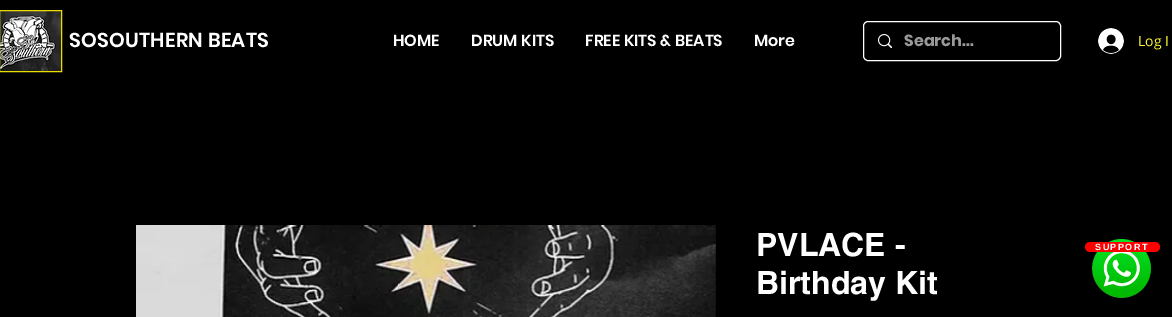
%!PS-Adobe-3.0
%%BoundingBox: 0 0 1172 317
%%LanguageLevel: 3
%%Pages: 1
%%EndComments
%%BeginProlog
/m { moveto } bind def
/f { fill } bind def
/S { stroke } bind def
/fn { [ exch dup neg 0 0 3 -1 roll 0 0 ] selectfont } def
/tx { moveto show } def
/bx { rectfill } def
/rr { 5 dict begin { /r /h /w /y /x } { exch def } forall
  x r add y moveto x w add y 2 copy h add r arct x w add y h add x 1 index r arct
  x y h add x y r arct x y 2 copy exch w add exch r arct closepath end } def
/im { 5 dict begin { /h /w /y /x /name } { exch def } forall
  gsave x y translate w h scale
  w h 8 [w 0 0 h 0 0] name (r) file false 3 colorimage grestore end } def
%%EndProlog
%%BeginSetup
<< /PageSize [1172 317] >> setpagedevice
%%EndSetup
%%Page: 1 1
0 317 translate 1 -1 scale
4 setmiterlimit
0 setgray
0 0 1172 317 bx
(image0.raw) 0 11 61 60 im
0.922 0.867 0 setrgbcolor
-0.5 10.5 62 61 rectstroke
/Poppins-SemiBold 20 fn
1 setgray
69 47 m 0.25 0 (SOSOUTHERN BEATS) ashow
/Poppins-SemiBold 16 fn
(HOME) 393 46 tx
(DRUM KITS) 471 46 tx
(FREE KITS & BEATS) 585 46 tx
(More) 754 46 tx
863.5 21.5 197 39 4.5 rr S
(image1.raw) 878 34 14 14 im
/Poppins-Bold 16 fn
0.6 setgray
(Search...) 904 46 tx
(image2.raw) 1098 28 26 26 im
/OpenSans-Regular 14 fn
0.992 0.969 0.2 setrgbcolor
(Log I) 1138 46 tx
(image3.raw) 136 225 580 92 im
/helvetica-Bold 32 fn
1 setgray
(PVLACE -) 756 256 tx
(Birthday Kit) 756 294 tx
(image4.raw) 1092 239 59 59 im
1 0 0 setrgbcolor
1085 242 75 10 5 rr f
/LiberationSans-Bold 9 fn
1 setgray
1095 250 m 1.5 0 (SUPPORT) ashow
showpage
%%EOF
